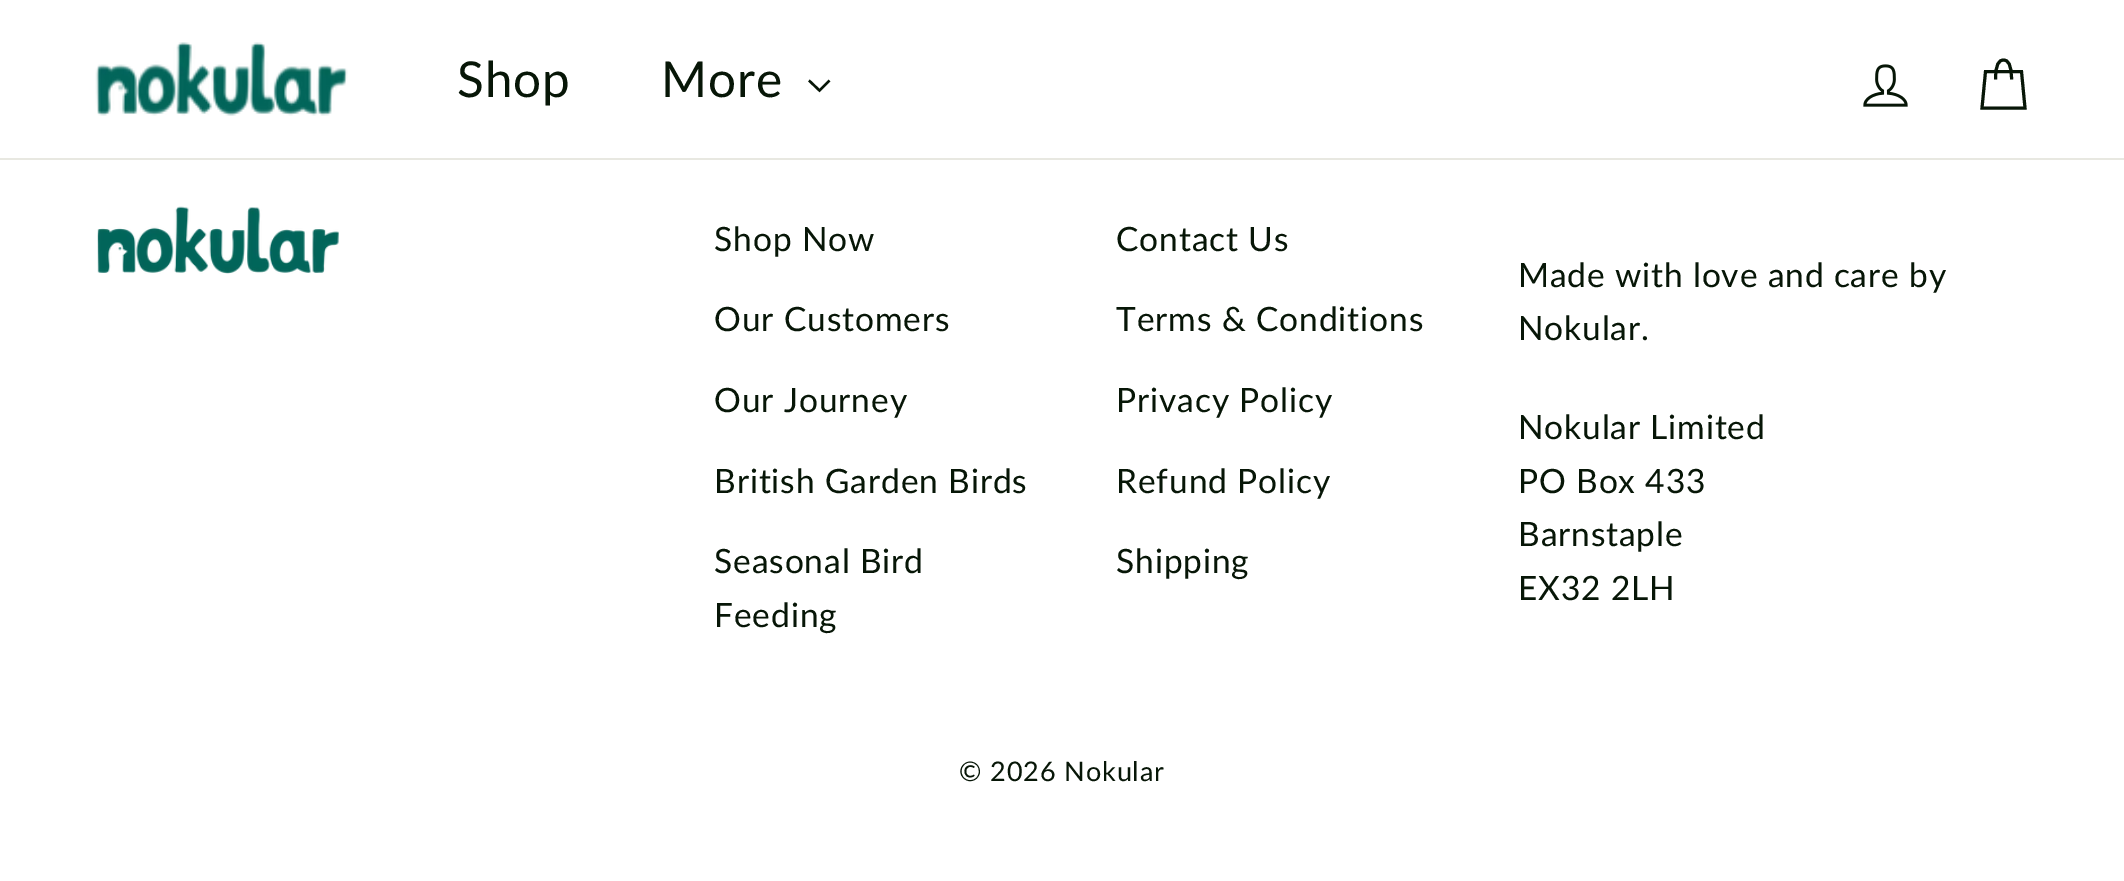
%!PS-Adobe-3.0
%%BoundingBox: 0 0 2124 881
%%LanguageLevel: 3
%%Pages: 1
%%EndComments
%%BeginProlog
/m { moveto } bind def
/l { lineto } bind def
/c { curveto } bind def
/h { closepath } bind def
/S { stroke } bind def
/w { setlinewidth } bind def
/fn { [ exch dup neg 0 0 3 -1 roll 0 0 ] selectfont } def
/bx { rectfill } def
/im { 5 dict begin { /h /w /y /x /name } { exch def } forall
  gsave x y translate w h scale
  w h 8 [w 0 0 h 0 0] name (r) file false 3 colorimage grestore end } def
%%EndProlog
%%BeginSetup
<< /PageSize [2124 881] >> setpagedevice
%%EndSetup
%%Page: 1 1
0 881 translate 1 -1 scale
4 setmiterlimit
1 setgray
0 0 2124 881 bx
0.91 0.91 0.882 setrgbcolor
0 158 2124 2 bx
(image0.raw) 95 42 253 74 im
/Lato-Regular 49.5 fn
0.027 0.086 0.027 setrgbcolor
457 97 m 0.9 0 (Shop) ashow
661 97 m 0.9 0 (More) ashow
2.4 w
809 80.5 m 819.5 90.5 l 829.5 80.5 l S
(image1.raw) 1863 64 45 43 im
3 w
1995.5 79.5 m 1995.5 64 1999 60 2003.5 60 c 2008 60 2011.5 64 2011.5 79.5 c 1985.5 71.5 m 2021.5 71.5 l 2025 108 l 1982 108 l h S
(image2.raw) 97 206 242 68 im
/Lato-Regular 33.5 fn
714 251 m 0.9 0 (Shop Now) ashow
714 331 m 0.9 0 (Our Customers) ashow
714 412 m 0.9 0 (Our Journey) ashow
714 493 m 0.9 0 (British Garden Birds) ashow
714 573 m 0.9 0 (Seasonal Bird) ashow
714 627 m 0.9 0 (Feeding) ashow
1116 251 m 0.9 0 (Contact Us) ashow
1116 331 m 0.9 0 (Terms & Conditions) ashow
1116 412 m 0.9 0 (Privacy Policy) ashow
1116 493 m 0.9 0 (Refund Policy) ashow
1116 573 m 0.9 0 (Shipping) ashow
1518 287 m 0.85 0 (Made with love and care by) ashow
1518 340 m 0.85 0 (Nokular.) ashow
1518 439 m 0.85 0 (Nokular Limited) ashow
1518 493 m 0.85 0 (PO Box 433) ashow
1518 546 m 0.85 0 (Barnstaple) ashow
1518 600 m 0.85 0 (EX32 2LH) ashow
/Lato-Regular 27 fn
959 781 m 0.9 0 (© 2026 Nokular) ashow
showpage
%%EOF
